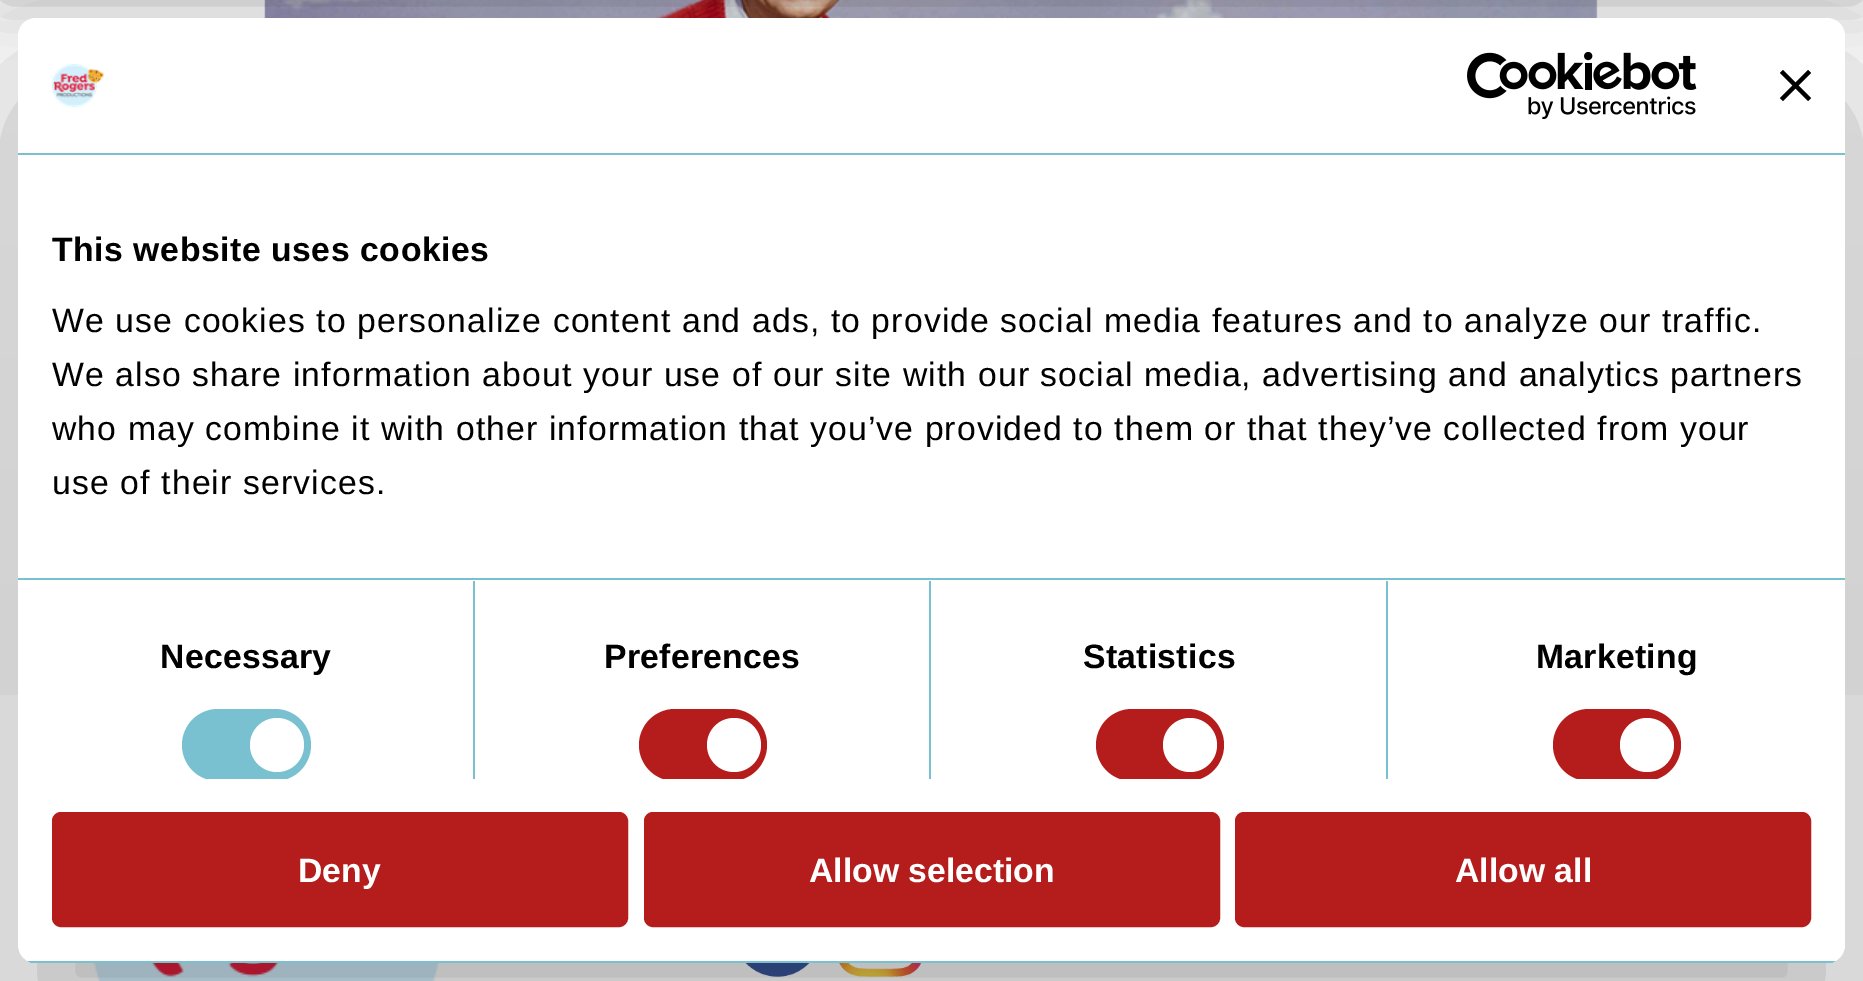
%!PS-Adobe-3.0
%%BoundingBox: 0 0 1863 981
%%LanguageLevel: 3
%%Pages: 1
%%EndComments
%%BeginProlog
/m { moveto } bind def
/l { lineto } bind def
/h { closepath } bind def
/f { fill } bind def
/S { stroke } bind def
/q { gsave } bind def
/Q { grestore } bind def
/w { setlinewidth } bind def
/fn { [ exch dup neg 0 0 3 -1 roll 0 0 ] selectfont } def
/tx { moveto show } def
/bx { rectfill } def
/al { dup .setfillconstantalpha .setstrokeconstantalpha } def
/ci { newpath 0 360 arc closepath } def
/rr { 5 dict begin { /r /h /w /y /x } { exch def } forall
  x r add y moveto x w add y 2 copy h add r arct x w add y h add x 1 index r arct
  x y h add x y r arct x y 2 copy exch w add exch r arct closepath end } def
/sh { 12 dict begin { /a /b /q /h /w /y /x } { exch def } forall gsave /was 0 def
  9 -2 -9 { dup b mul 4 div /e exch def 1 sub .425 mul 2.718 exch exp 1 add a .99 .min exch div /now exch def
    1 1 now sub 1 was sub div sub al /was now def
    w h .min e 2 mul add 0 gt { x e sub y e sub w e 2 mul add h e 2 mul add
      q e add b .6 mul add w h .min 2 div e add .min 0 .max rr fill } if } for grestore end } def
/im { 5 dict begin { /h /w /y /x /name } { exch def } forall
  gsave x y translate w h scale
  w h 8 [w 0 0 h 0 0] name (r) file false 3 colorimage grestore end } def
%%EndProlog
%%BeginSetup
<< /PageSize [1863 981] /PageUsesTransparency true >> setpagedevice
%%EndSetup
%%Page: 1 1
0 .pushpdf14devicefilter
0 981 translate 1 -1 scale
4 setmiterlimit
1 setgray
0 0 1863 981 bx
(image0.raw) 264 0 1334 18 im
q 0 21 m 1863 21 l 1863 695 l 0 695 l h clip newpath
<< /ShadingType 2 /ColorSpace /DeviceRGB /Coords [932 -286 932 695] /Extend [true true] /Function << /FunctionType 2 /Domain [0 1] /C0 [1 1 1] /C1 [0.969 0.969 0.969] /N 1 >> >> shfill Q
0 setgray
0 -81 1863 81 0 27 0.3 sh
(image4.raw) 93 963 347 18 im
(image5.raw) 745 963 65 14 im
(image6.raw) 839 963 82 14 im
18 90 1827 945 18 76.5 0.3 sh
1 setgray
18 18 1827 945 18 rr f
0.475 0.757 0.82 setrgbcolor
18 153 1827 2 bx
(image1.raw) 51 63 53 45 im
(image2.raw) 1467 52 230 67 im
(image3.raw) 1780 70 31 31 im
18 578 1827 2 bx
/LiberationSans-Bold 33.75 fn
0 setgray
52 261 m 0.55 0 (This website uses cookies) ashow
/LiberationSans-Regular 33.75 fn
52 332 m 1.12 0 (We use cookies to personalize content and ads, to provide social media features and to analyze our traffic.) ashow
52 386 m 1.12 0 (We also share information about your use of our site with our social media, advertising and analytics partners) ashow
52 440 m 1.12 0 (who may combine it with other information that you’ve provided to them or that they’ve collected from your) ashow
52 494 m 1.12 0 (use of their services.) ashow
0.475 0.757 0.82 setrgbcolor
473 581 2 198 bx
/LiberationSans-Bold 33.75 fn
0 setgray
160 668 m 0.25 0 (Necessary) ashow
q
18 155 1827 624 rectclip
0.475 0.757 0.82 setrgbcolor
182 709 129 72 36 rr f
Q
1 setgray
277 745 27 ci f
0.475 0.757 0.82 setrgbcolor
929 581 2 198 bx
0 setgray
604 668 m 0.25 0 (Preferences) ashow
q
18 155 1827 624 rectclip
0.71 0.114 0.114 setrgbcolor
639 709 128 72 36 rr f
Q
1 setgray
734 745 27 ci f
0.475 0.757 0.82 setrgbcolor
1386 581 2 198 bx
0 setgray
1083 668 m 0.25 0 (Statistics) ashow
q
18 155 1827 624 rectclip
0.71 0.114 0.114 setrgbcolor
1096 709 128 72 36 rr f
Q
1 setgray
1190 745 27 ci f
0 setgray
1536 668 m 0.25 0 (Marketing) ashow
q
18 155 1827 624 rectclip
0.71 0.114 0.114 setrgbcolor
1553 709 128 72 36 rr f
Q
1 setgray
1647 745 27 ci f
q
18 18 1827 945 18 rr clip newpath
0.475 0.757 0.82 setrgbcolor
28 961 1807 2 bx
Q
0.71 0.114 0.114 setrgbcolor
54.5 814.5 571 110 6.5 rr q f Q
5 w
S
1 setgray
(Deny) 298 882 tx
0.71 0.114 0.114 setrgbcolor
646.5 814.5 571 110 6.5 rr q f Q
S
1 setgray
(Allow selection) 809 882 tx
0.71 0.114 0.114 setrgbcolor
1237.5 814.5 571 110 6.5 rr q f Q
S
1 setgray
(Allow all) 1455 882 tx
.poppdf14devicefilter showpage
%%EOF
